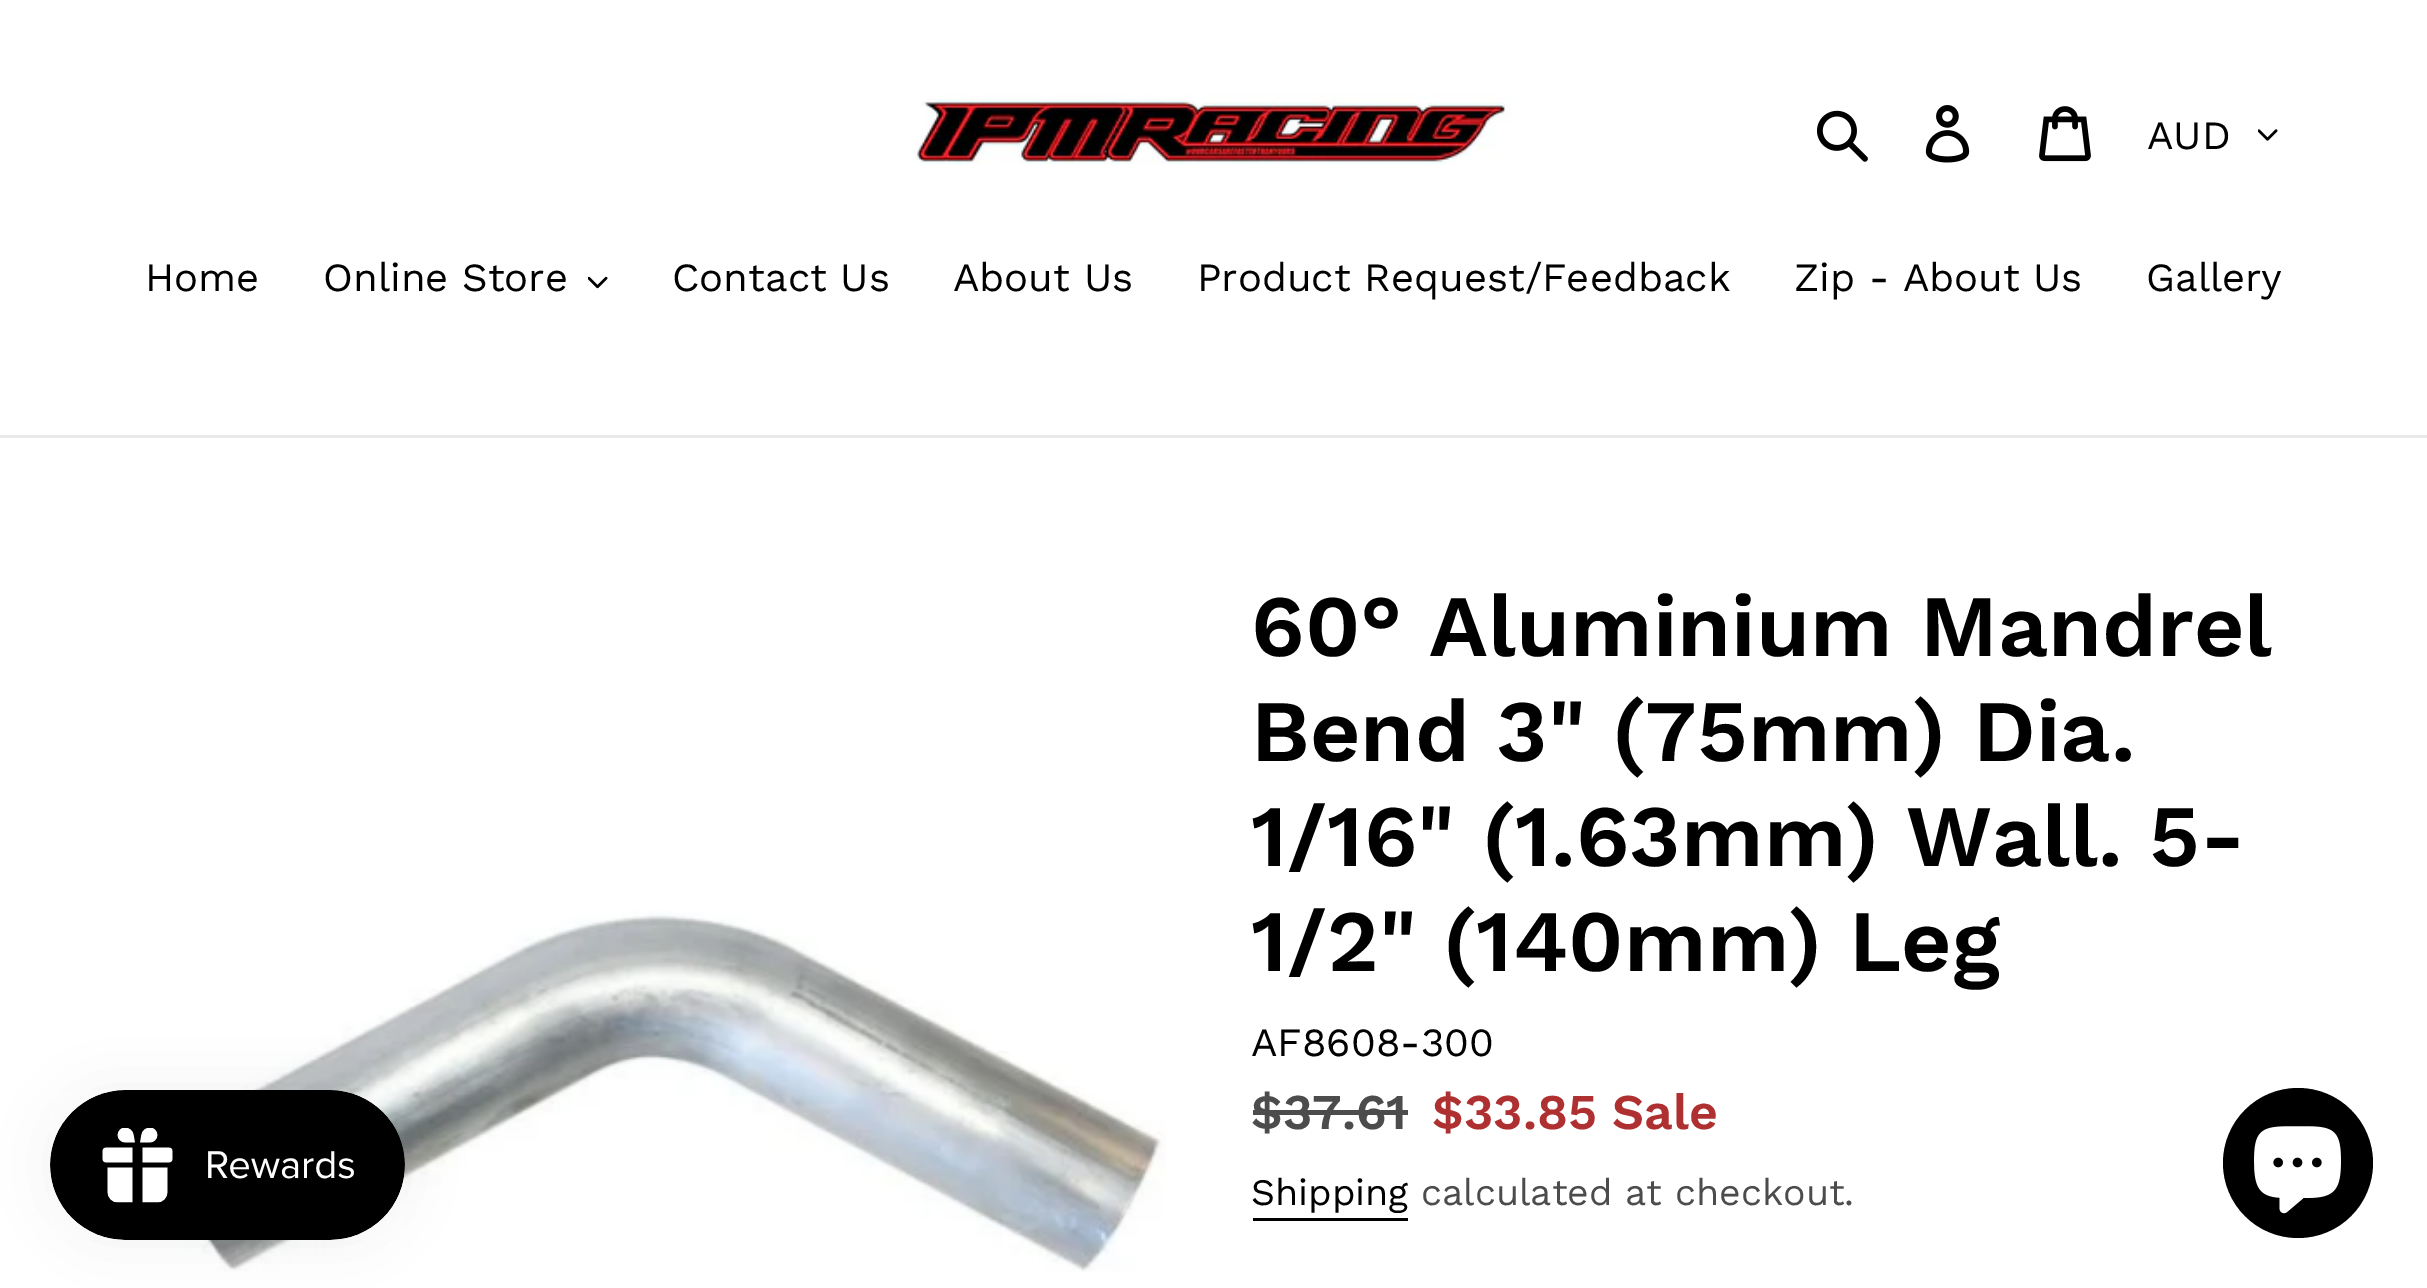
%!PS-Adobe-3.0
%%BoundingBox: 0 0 2427 1288
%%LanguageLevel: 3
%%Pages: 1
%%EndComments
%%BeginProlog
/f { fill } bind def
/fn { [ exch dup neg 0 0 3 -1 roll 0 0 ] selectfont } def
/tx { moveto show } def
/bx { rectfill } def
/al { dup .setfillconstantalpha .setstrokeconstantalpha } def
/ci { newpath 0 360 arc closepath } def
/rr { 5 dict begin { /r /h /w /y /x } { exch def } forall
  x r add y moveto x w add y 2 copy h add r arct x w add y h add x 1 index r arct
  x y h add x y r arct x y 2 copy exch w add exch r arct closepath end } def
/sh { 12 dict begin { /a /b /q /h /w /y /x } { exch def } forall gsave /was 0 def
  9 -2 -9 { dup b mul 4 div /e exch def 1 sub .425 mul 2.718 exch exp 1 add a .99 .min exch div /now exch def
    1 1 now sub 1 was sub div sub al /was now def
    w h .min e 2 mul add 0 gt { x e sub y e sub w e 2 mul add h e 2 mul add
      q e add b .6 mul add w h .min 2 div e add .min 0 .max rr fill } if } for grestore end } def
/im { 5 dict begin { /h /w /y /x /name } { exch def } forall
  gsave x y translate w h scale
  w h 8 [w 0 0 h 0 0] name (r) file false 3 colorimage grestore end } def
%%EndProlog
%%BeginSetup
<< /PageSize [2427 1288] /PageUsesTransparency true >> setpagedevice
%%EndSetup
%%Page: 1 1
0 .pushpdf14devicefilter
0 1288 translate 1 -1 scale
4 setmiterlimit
1 setgray
0 0 2427 1288 bx
(image0.raw) 914 94 598 71 im
(image1.raw) 1817 110 51 52 im
(image2.raw) 1925 105 45 58 im
(image3.raw) 2039 106 52 56 im
/WorkSans-Regular 40 fn
0 setgray
(AUD) 2147 149 tx
(image4.raw) 2258 129 20 12 im
0.91 0.914 0.922 setrgbcolor
0 435 2427 3 bx
0 setgray
(Home) 145 291 tx
(Online Store) 323 291 tx
(image5.raw) 588 276 20 13 im
(Contact Us) 672 291 tx
(About Us) 953 291 tx
(Product Request/Feedback) 1197 291 tx
(Zip - About Us) 1794 291 tx
(Gallery) 2146 291 tx
(image7.raw) 158 911 1008 361 im
50 1090 355 150 75 31 0.05 sh
(image6.raw) 50 1090 355 150 im
/WorkSans-SemiBold 87.5 fn
(60° Aluminium Mandrel) 1251 656 tx
(Bend 3" \(75mm\) Dia.) 1251 761 tx
(1/16" \(1.63mm\) Wall. 5-) 1251 866 tx
(1/2" \(140mm\) Leg) 1251 971 tx
/WorkSans-Regular 40 fn
(AF8608-300) 1251 1056 tx
/WorkSans-SemiBold 50 fn
0.298 setgray
($37.61) 1251 1129 tx
1253 1110 155 5 bx
0.682 0.188 0.188 setrgbcolor
($33.85 Sale) 1432 1129 tx
/WorkSans-Regular 37.5 fn
0 setgray
(Shipping) 1251 1205 tx
1253 1218 155 3 bx
0.298 setgray
(calculated at checkout.) 1421 1205 tx
0 setgray
2298 1163 75 ci f
(image8.raw) 2254 1126 87 88 im
.poppdf14devicefilter showpage
%%EOF
